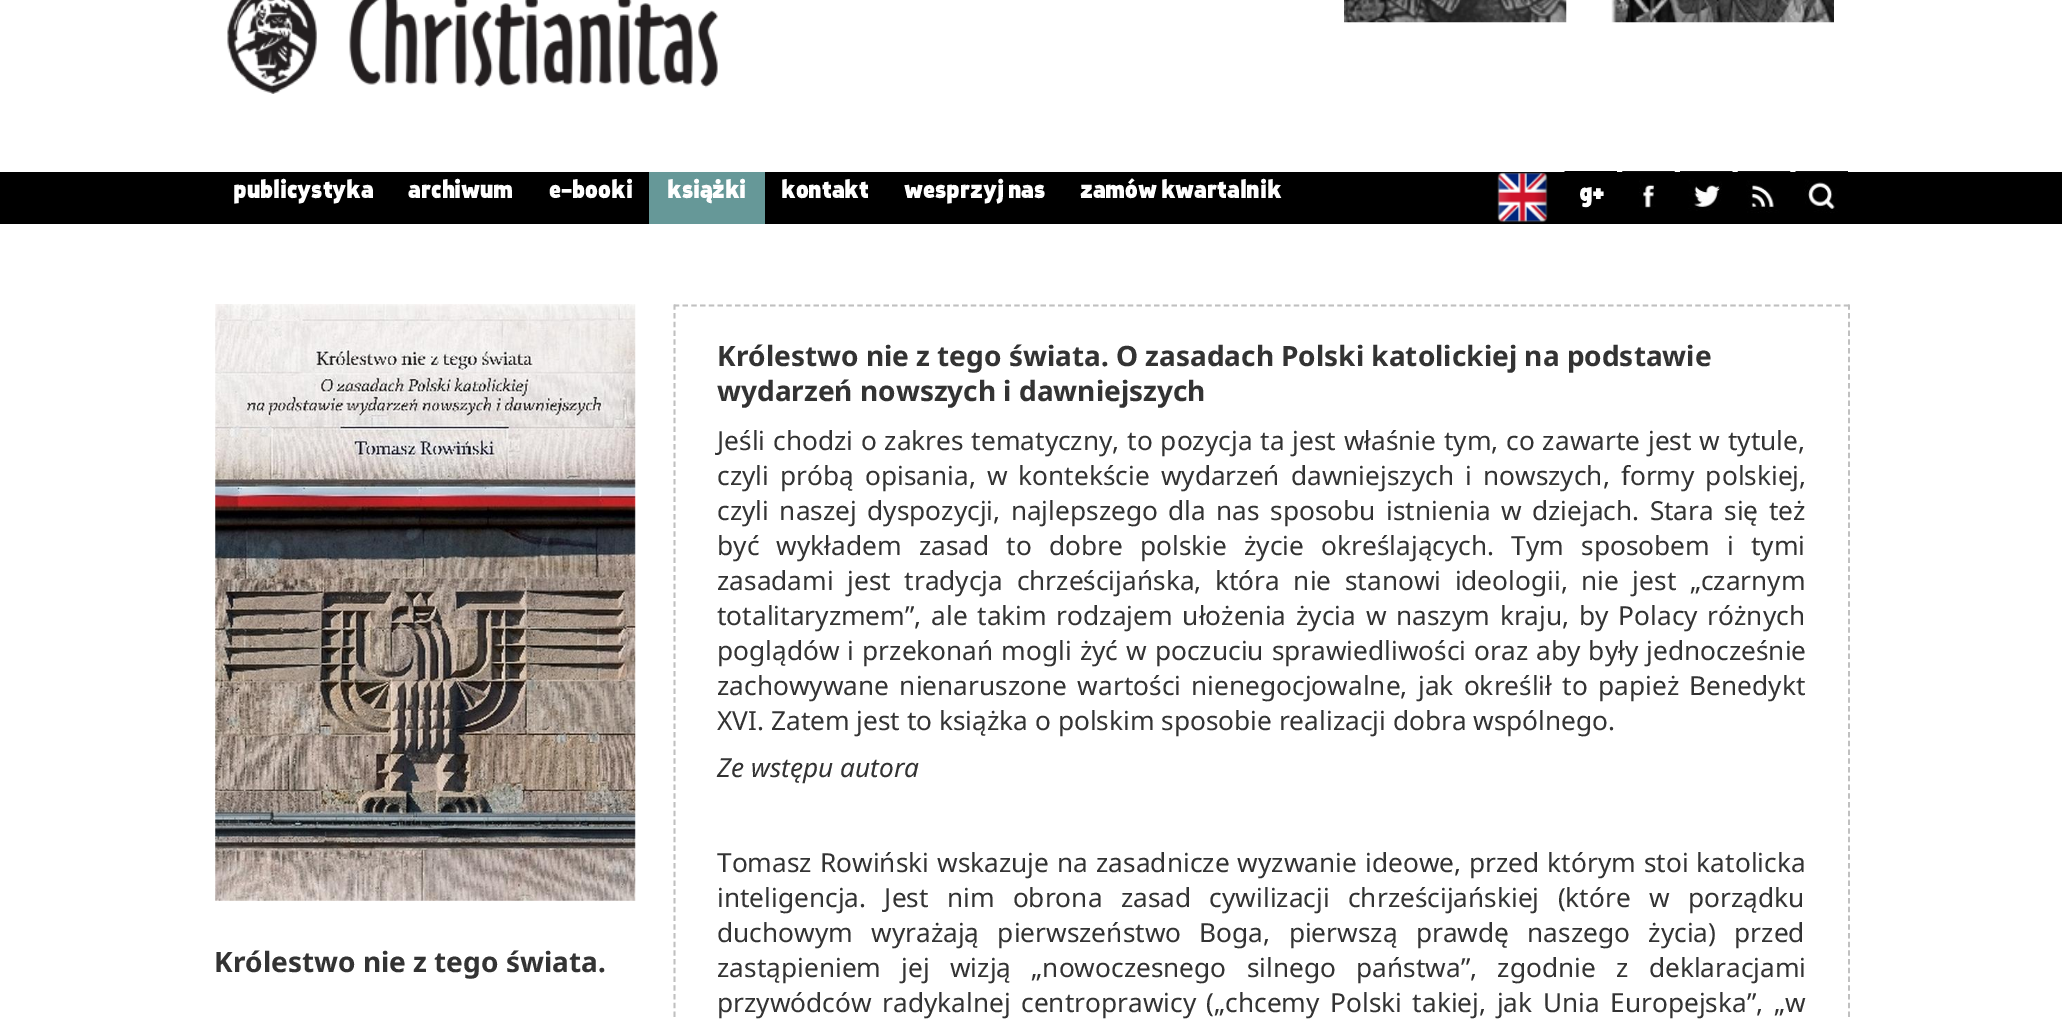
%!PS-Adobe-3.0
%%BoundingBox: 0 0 2062 1020
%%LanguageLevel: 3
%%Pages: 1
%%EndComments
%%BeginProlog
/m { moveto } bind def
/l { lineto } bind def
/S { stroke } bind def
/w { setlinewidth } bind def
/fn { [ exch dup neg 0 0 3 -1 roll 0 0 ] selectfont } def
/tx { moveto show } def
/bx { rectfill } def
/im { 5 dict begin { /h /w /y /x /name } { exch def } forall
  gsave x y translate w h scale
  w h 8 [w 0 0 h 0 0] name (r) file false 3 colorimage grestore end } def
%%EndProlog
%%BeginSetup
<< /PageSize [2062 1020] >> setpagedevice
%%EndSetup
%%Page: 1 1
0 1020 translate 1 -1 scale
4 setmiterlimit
1 setgray
0 0 2062 1020 bx
(image0.raw) 227 0 491 94 im
(image1.raw) 1344 0 223 23 im
(image2.raw) 1611 0 223 23 im
0 setgray
0 172 2062 52 bx
/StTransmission-ExtraBold 28 fn
1 setgray
(publicystyka) 233 198 tx
(archiwum) 408 198 tx
(e-booki) 549 198 tx
0.4 0.596 0.596 setrgbcolor
649 172 116 52 bx
1 setgray
(książki) 667 198 tx
(kontakt) 781 198 tx
(wesprzyj nas) 904 198 tx
(zamów kwartalnik) 1080 198 tx
(image3.raw) 1497 172 51 51 im
(image4.raw) 1564 171 53 37 im
(image5.raw) 1622 171 53 37 im
(image6.raw) 1680 171 53 40 im
(image7.raw) 1737 171 54 42 im
(image8.raw) 1795 171 53 42 im
(image9.raw) 215 304 421 597 im
/NotoSans-Bold 28 fn
0.2 setgray
(Królestwo nie z tego świata.) 214 972 tx
0.753 setgray
1.8 w
[5.25 3.48] 0 setdash
674 305.5 m 1850 305.5 l S
1849 304.5 m 1849 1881 l S
674.5 304.5 m 674.5 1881 l S
0.2 setgray
(Królestwo nie z tego świata. O zasadach Polski katolickiej na podstawie) 717 366 tx
(wydarzeń nowszych i dawniejszych) 717 401 tx
/NotoSans-Regular 26.25 fn
717 450 m 1 0 32 (Jeśli chodzi o zakres tematyczny, to pozycja ta jest właśnie tym, co zawarte jest w tytule,) widthshow
717 485 m 4.25 0 32 (czyli próbą opisania, w kontekście wydarzeń dawniejszych i nowszych, formy polskiej,) widthshow
717 520 m 3.6 0 32 (czyli naszej dyspozycji, najlepszego dla nas sposobu istnienia w dziejach. Stara się też) widthshow
717 555 m 10.4 0 32 (być wykładem zasad to dobre polskie życie określających. Tym sposobem i tymi) widthshow
717 590 m 6.75 0 32 (zasadami jest tradycja chrześcijańska, która nie stanowi ideologii, nie jest „czarnym) widthshow
717 625 m 3 0 32 (totalitaryzmem”, ale takim rodzajem ułożenia życia w naszym kraju, by Polacy różnych) widthshow
717 660 m 1.25 0 32 (poglądów i przekonań mogli żyć w poczuciu sprawiedliwości oraz aby były jednocześnie) widthshow
717 695 m 3.5 0 32 (zachowywane nienaruszone wartości nienegocjowalne, jak określił to papież Benedykt) widthshow
(XVI. Zatem jest to książka o polskim sposobie realizacji dobra wspólnego.) 717 730 tx
/NotoSans-Italic 26.25 fn
(Ze wstępu autora) 717 777 tx
/NotoSans-Regular 26.25 fn
717 872 m 1.25 0 32 (Tomasz Rowiński wskazuje na zasadnicze wyzwanie ideowe, przed którym stoi katolicka) widthshow
717 907 m 11.5 0 32 (inteligencja. Jest nim obrona zasad cywilizacji chrześcijańskiej \(które w porządku) widthshow
717 942 m 11.5 0 32 (duchowym wyrażają pierwszeństwo Boga, pierwszą prawdę naszego życia\) przed) widthshow
717 977 m 13.5 0 32 (zastąpieniem jej wizją „nowoczesnego silnego państwa”, zgodnie z deklaracjami) widthshow
717 1012 m 3.75 0 32 (przywódców radykalnej centroprawicy \(„chcemy Polski takiej, jak Unia Europejska”, „w) widthshow
showpage
%%EOF
